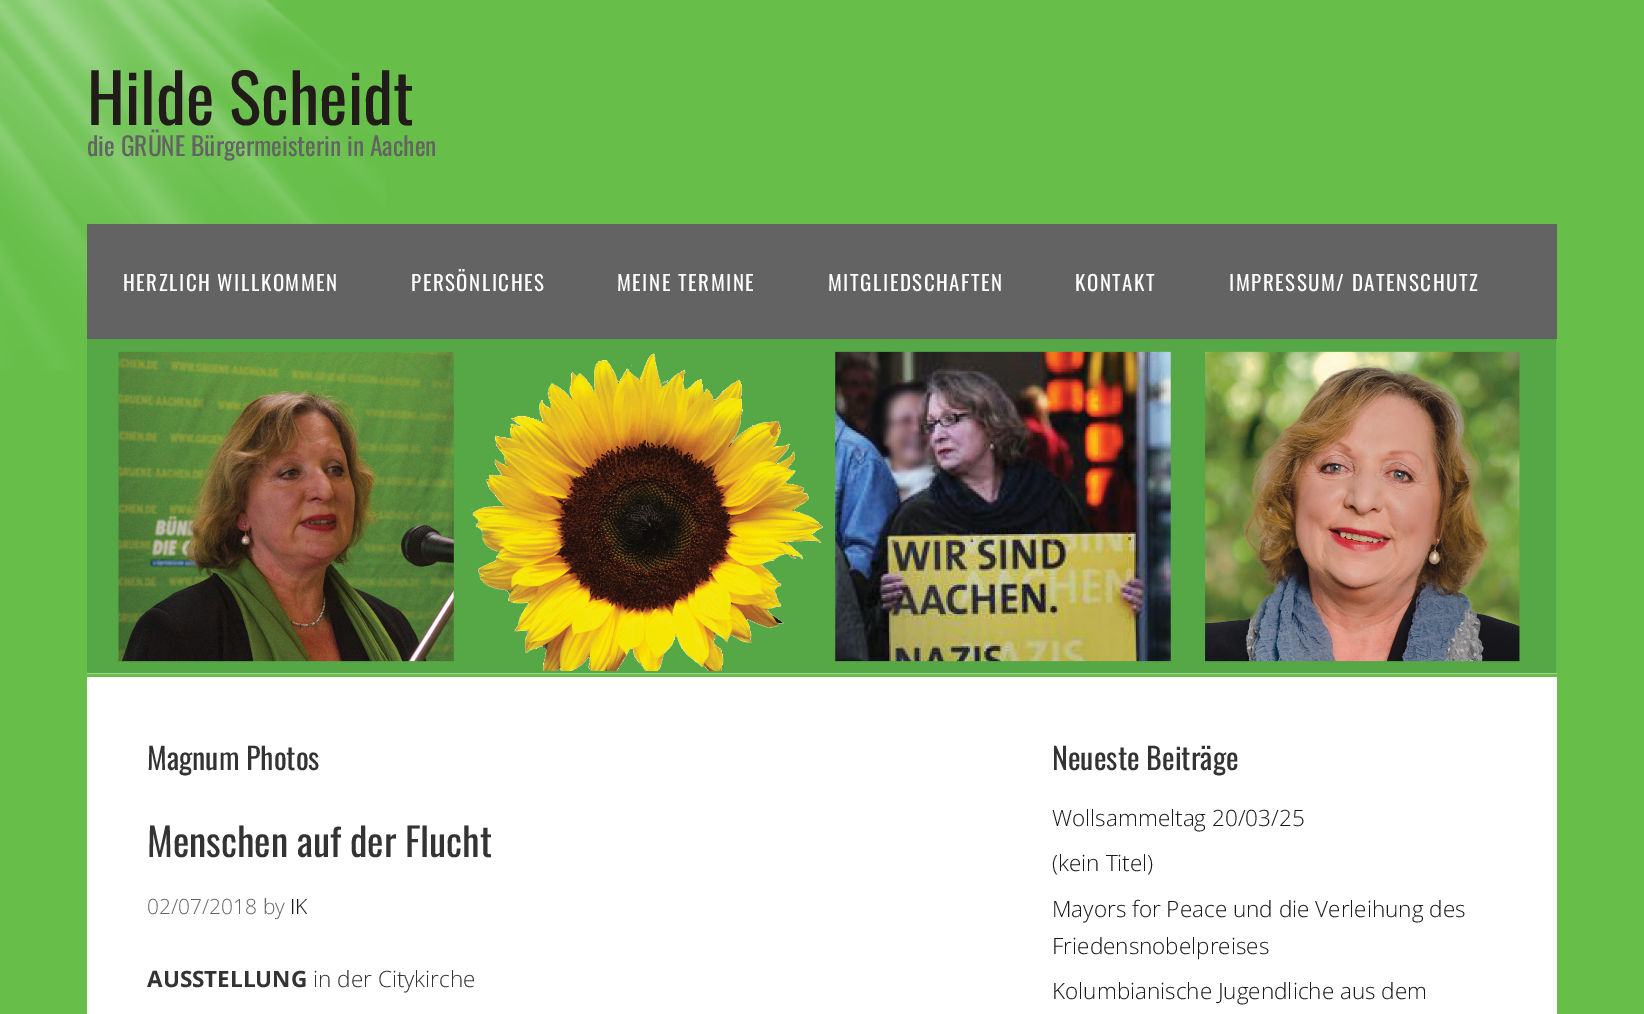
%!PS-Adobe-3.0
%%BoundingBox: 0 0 1644 1014
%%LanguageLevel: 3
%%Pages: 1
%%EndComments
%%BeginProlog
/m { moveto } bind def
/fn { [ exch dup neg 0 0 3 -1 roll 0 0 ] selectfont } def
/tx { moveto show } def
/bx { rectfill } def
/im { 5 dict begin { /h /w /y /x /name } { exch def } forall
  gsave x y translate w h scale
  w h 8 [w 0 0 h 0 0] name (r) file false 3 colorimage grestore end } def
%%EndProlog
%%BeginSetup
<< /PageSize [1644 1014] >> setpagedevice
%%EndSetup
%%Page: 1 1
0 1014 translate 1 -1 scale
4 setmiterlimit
0.404 0.749 0.29 setrgbcolor
0 0 1644 1014 bx
(image0.raw) 0 0 386 371 im
/Oswald-Regular 67.5 fn
0.129 0.106 0.102 setrgbcolor
(Hilde Scheidt) 87 125 tx
/Oswald-Regular 25.5 fn
0.388 setgray
(die GRÜNE Bürgermeisterin in Aachen) 87 156 tx
87 224 1470 115 bx
/Oswald-Regular 21 fn
1 setgray
123 291 m 1.5 0 (HERZLICH WILLKOMMEN) ashow
411 291 m 1.5 0 (PERSÖNLICHES) ashow
617 291 m 1.5 0 (MEINE TERMINE) ashow
828 291 m 1.5 0 (MITGLIEDSCHAFTEN) ashow
1075 291 m 1.5 0 (KONTAKT) ashow
1229 291 m 1.5 0 (IMPRESSUM/ DATENSCHUTZ) ashow
(image1.raw) 87 339 1470 335 im
87 677 1470 337 bx
/Oswald-Regular 30 fn
0.2 setgray
(Magnum Photos) 147 770 tx
/Oswald-Regular 39 fn
(Menschen auf der Flucht) 147 857 tx
/OpenSans-Light 21 fn
0.388 setgray
(02/07/2018 by) 147 914 tx
0.098 setgray
(IK) 290 914 tx
/OpenSans-Bold 22.5 fn
0.2 setgray
(AUSSTELLUNG) 147 987 tx
/OpenSans-Light 22.5 fn
(in der Citykirche) 313 987 tx
/Oswald-Regular 30 fn
(Neueste Beiträge) 1052 770 tx
/OpenSans-Light 22.5 fn
0.098 setgray
(Wollsammeltag 20/03/25) 1052 826 tx
(\(kein Titel\)) 1052 871 tx
(Mayors for Peace und die Verleihung des) 1052 917 tx
(Friedensnobelpreises) 1052 954 tx
(Kolumbianische Jugendliche aus dem) 1052 999 tx
showpage
%%EOF
